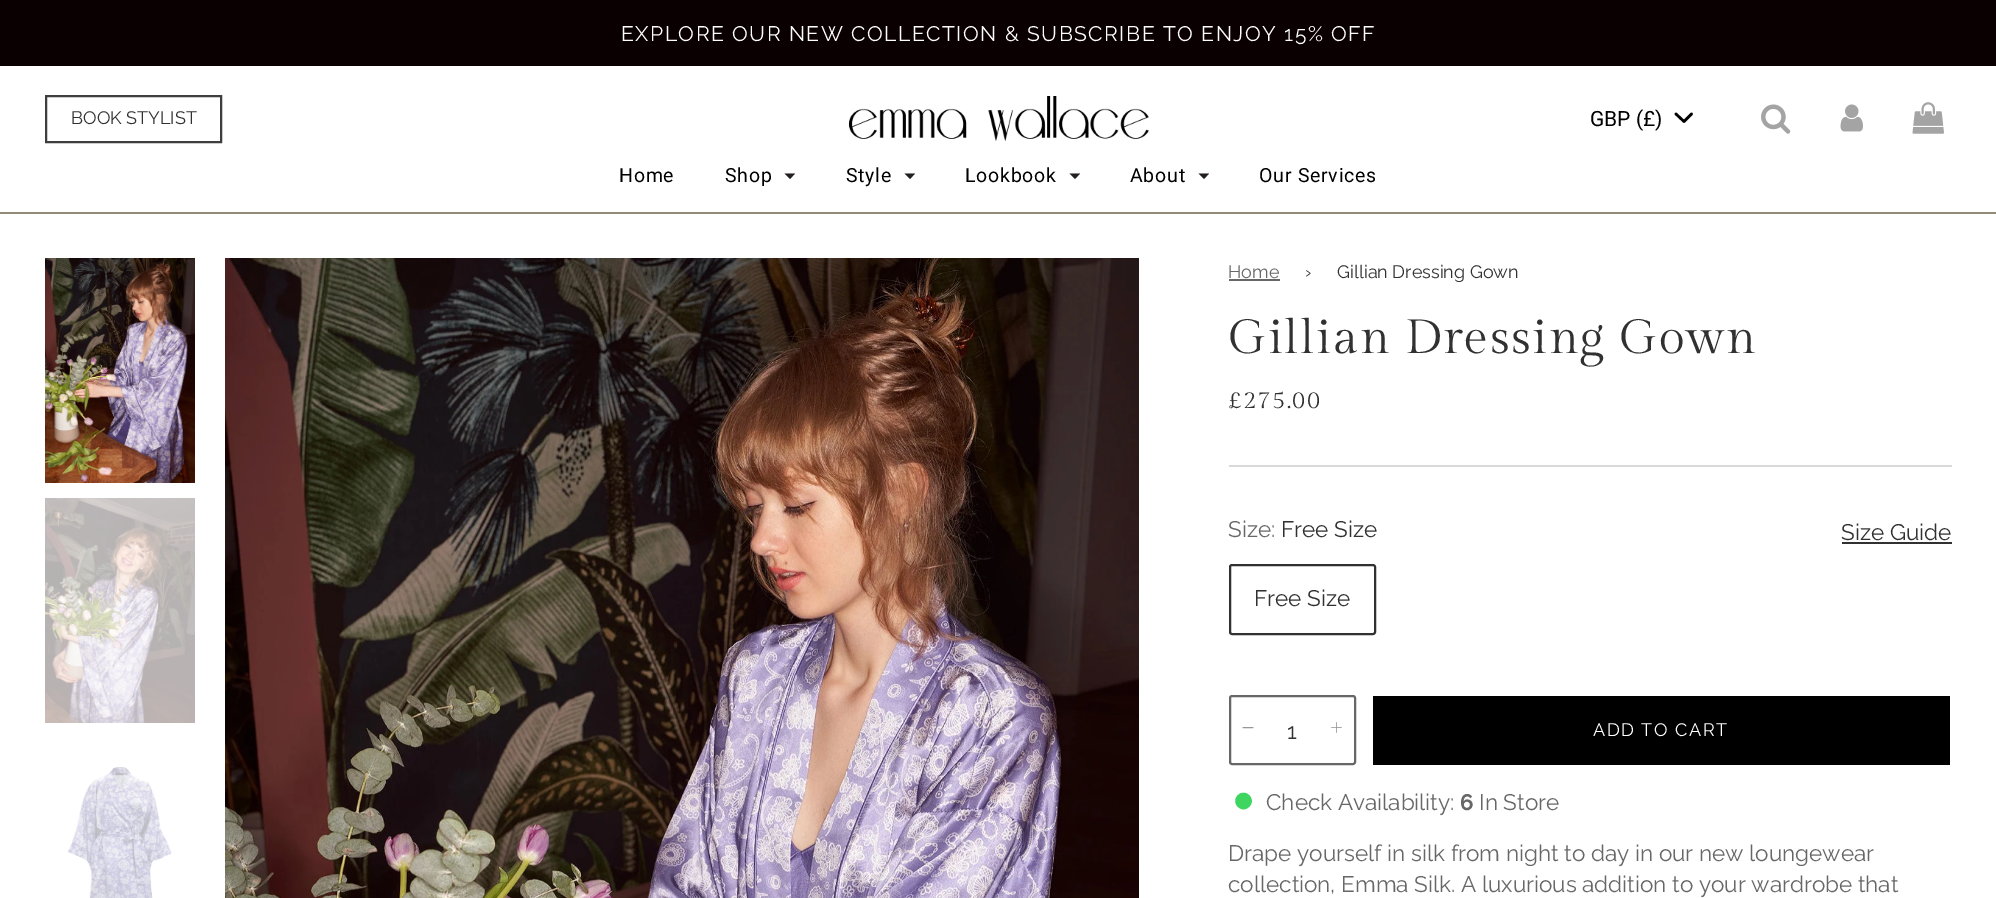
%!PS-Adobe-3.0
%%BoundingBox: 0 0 1996 898
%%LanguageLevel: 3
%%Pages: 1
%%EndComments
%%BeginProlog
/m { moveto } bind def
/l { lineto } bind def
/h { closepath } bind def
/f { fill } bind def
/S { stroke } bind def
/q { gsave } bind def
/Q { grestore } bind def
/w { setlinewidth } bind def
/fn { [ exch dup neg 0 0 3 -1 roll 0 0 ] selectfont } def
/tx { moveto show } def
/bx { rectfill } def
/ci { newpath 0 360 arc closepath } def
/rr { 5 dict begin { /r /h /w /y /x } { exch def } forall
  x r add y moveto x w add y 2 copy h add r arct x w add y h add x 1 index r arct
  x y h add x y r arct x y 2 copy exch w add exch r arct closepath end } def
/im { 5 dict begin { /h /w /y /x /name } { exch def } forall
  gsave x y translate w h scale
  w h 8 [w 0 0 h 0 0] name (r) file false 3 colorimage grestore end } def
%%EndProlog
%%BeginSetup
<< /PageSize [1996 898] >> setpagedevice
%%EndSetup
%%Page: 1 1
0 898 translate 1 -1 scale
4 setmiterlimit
1 setgray
0 0 1996 898 bx
0.039 0 0.008 setrgbcolor
0 0 1996 66 bx
/Raleway-Regular 21 fn
1 setgray
621 41 m 1.5 0 (EXPLORE OUR NEW COLLECTION & SUBSCRIBE TO ENJOY 15% OFF) ashow
0.58 0.541 0.475 setrgbcolor
0 212 1996 2 bx
0.243 setgray
2 w
46 96 175 46 rectstroke
/Raleway-Regular 18 fn
0.192 setgray
(BOOK STYLIST) 71 124 tx
(image0.raw) 849 96 300 45 im
/Roboto-Regular 21 fn
0 setgray
(GBP \(£\)) 1590 126 tx
2.6 w
1 setlinecap
1 setlinejoin
1676 114 m 1684 121.5 l 1691.5 114 l S
(image1.raw) 1761 104 30 30 im
(image2.raw) 1840 104 23 28 im
(image3.raw) 1912 102 32 32 im
/Roboto-Regular 19.5 fn
619 182 m 0.75 0 (Home) ashow
725 182 m 0.75 0 (Shop) ashow
0.137 0.122 0.125 setrgbcolor
784.5 173.5 m 790 179 l 795 173.5 l h f
0 setgray
846 182 m 0.75 0 (Style) ashow
0.137 0.122 0.125 setrgbcolor
904.5 173.5 m 910 179 l 915 173.5 l h f
0 setgray
965 182 m 0.75 0 (Lookbook) ashow
0.137 0.122 0.125 setrgbcolor
1069.5 173.5 m 1075 179 l 1080 173.5 l h f
0 setgray
1130 182 m 0.75 0 (About) ashow
0.137 0.122 0.125 setrgbcolor
1198.5 173.5 m 1204 179 l 1209 173.5 l h f
0 setgray
1259 182 m 0.75 0 (Our Services) ashow
(image4.raw) 45 258 150 225 im
(image5.raw) 45 498 150 225 im
(image6.raw) 67 767 105 131 im
(image7.raw) 225 258 914 640 im
/Raleway-Regular 18 fn
0.404 setgray
(Home) 1228 278 tx
1229 279 51 2 bx
0.192 setgray
(›) 1305 278 tx
(Gillian Dressing Gown) 1337 278 tx
/GildaDisplay-Regular 48 fn
1228 353 m 1.5 0 (Gillian Dressing Gown) ashow
0.851 setgray
1229 465 723 2 bx
/GildaDisplay-Regular 24 fn
0.192 setgray
1228 408 m 1.5 0 (£275.00) ashow
/Raleway-Regular 22.5 fn
0.404 setgray
(Size:) 1228 537 tx
0.192 setgray
(Free Size) 1281 537 tx
(Size Guide) 1841 540 tx
1842 542 110 2 bx
2 w
0 setlinecap
0 setlinejoin
1230 565 145 69 2 rr S
(Free Size) 1254 606 tx
0.404 setgray
1230 696 125 68 2 rr S
0.596 setgray
1 w
1 setlinecap
1243 727.5 m 1253 727.5 l S
0.192 setgray
(1) 1287 739 tx
(image8.raw) 1331 722 11 11 im
0 setgray
1373 696 577 69 bx
/Raleway-Regular 18 fn
1 setgray
1593 736 m 1.5 0 (ADD TO CART) ashow
0.243 0.839 0.376 setrgbcolor
1243.5 801 7.5 ci q f Q
1.5 w
0 setlinecap
S
/Raleway-Regular 22.5 fn
0.404 setgray
(Check Availability:) 1266 810 tx
/Raleway-Bold 22.5 fn
(6) 1460 810 tx
/Raleway-Regular 22.5 fn
(In Store) 1479 810 tx
(Drape yourself in silk from night to day in our new loungewear) 1228 861 tx
(collection, Emma Silk. A luxurious addition to your wardrobe that) 1228 892 tx
showpage
%%EOF
